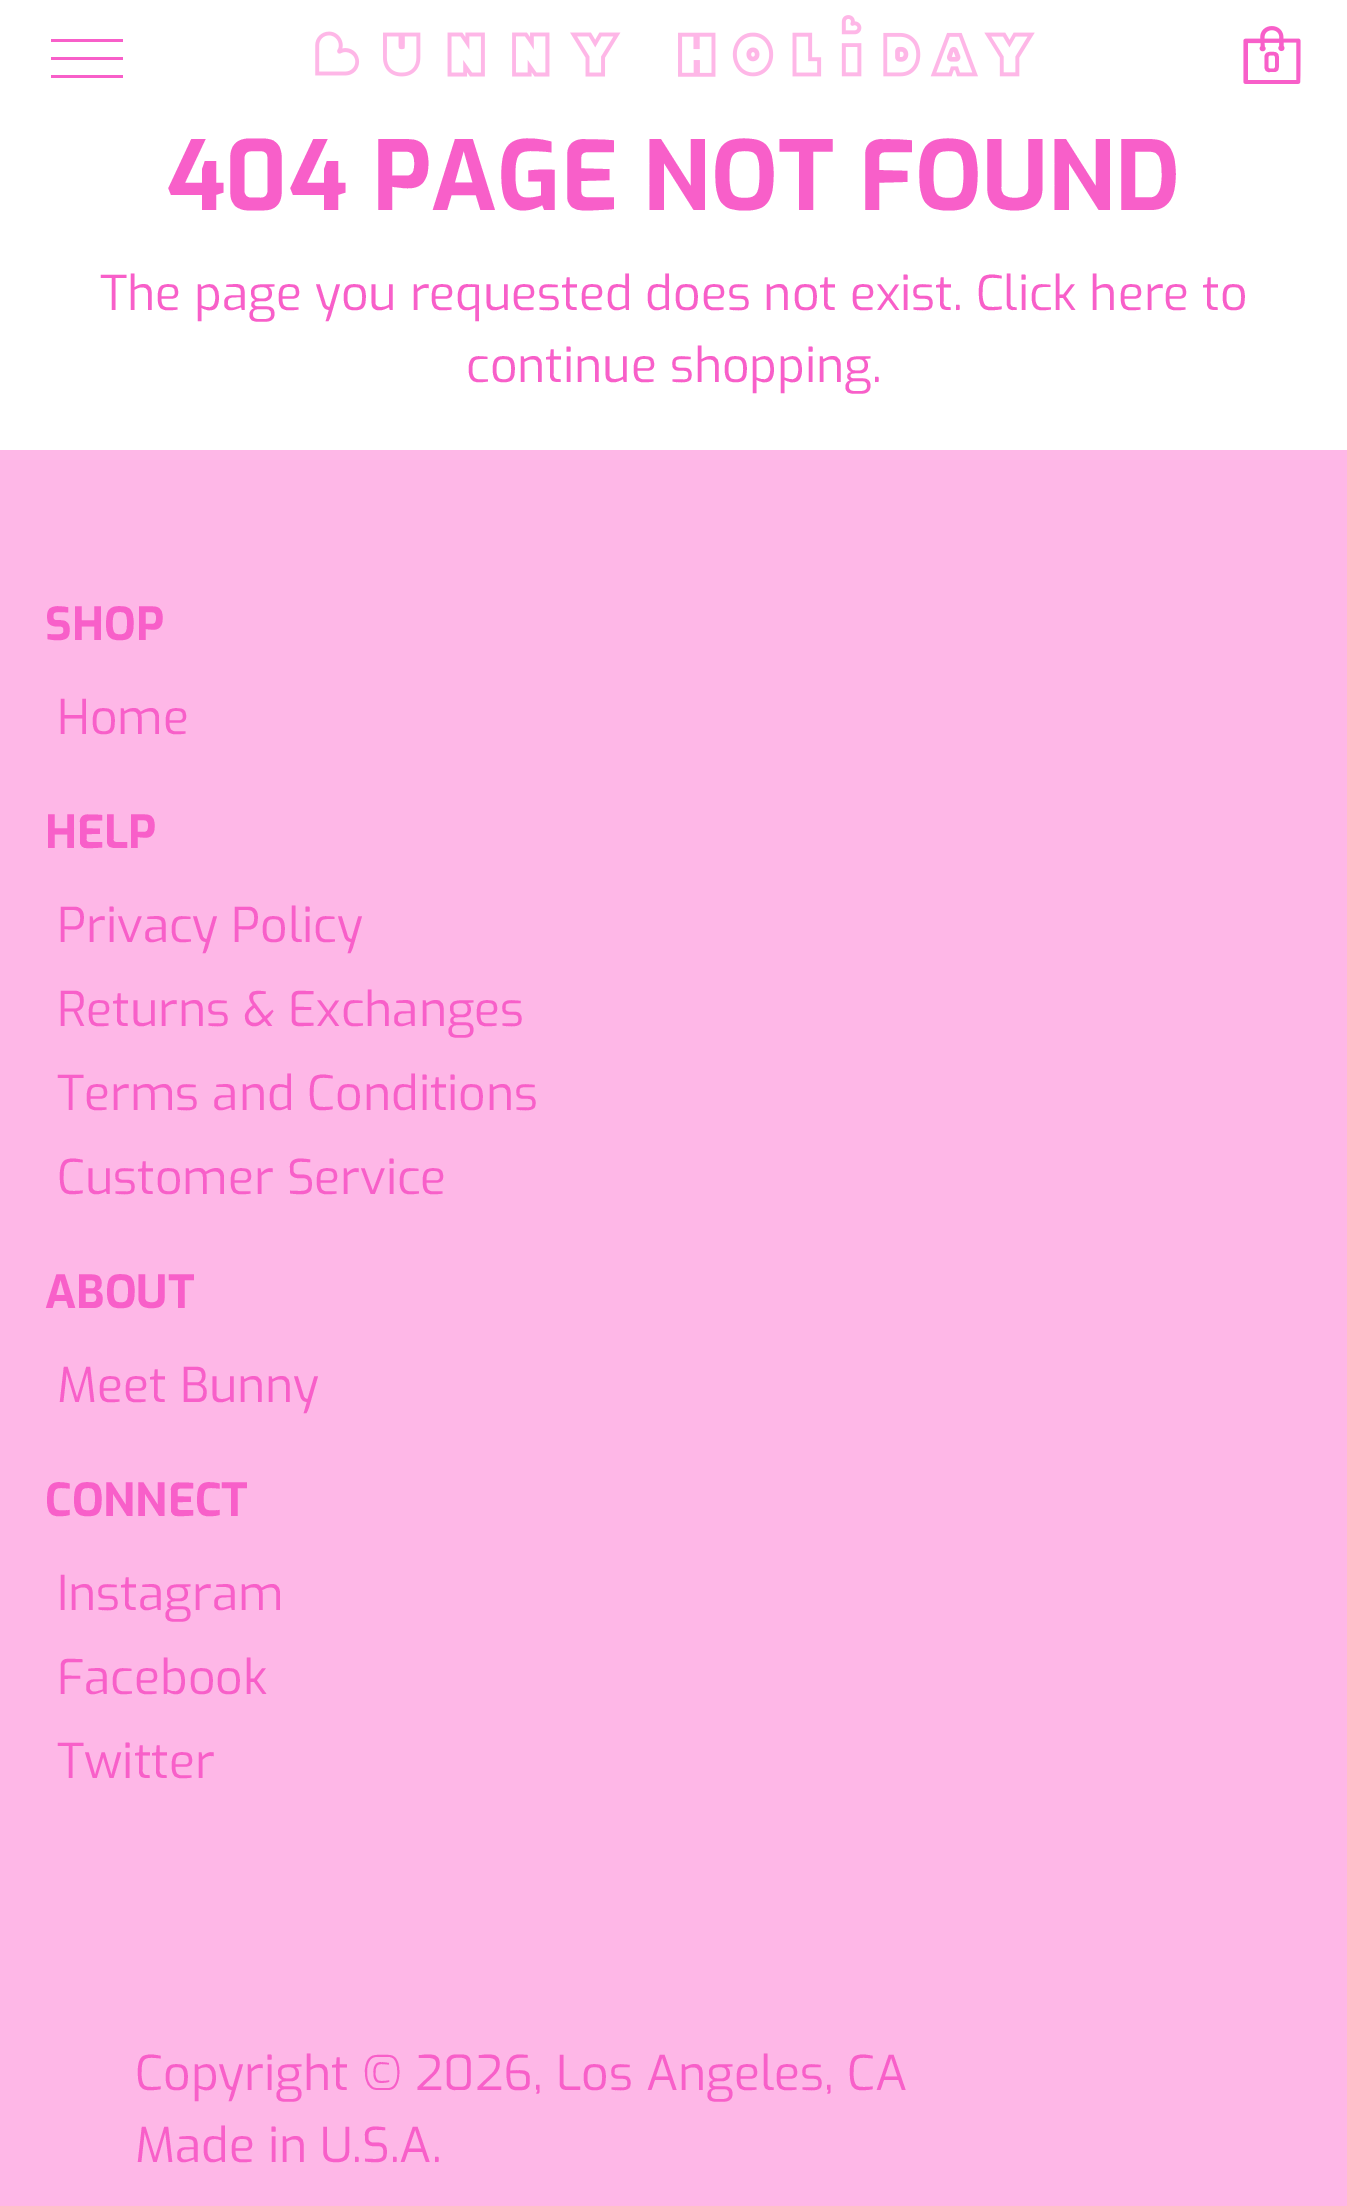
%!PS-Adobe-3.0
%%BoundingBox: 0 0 1347 2206
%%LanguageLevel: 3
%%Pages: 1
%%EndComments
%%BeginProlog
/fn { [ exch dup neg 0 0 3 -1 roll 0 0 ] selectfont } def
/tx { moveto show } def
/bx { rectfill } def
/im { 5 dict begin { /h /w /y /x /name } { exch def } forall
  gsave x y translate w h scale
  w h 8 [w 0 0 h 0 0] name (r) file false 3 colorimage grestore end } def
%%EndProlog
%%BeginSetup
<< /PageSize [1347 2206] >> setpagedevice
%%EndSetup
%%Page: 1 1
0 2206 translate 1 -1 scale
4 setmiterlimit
1 setgray
0 0 1347 2206 bx
(image0.raw) 315 15 720 62 im
0.973 0.373 0.788 setrgbcolor
51 57 72 3 bx
51 39 72 3 bx
51 75 72 3 bx
(image1.raw) 1243 26 58 58 im
/Exo-Bold 27 fn
(0) 1263 72 tx
/Exo-Bold 96 fn
(404 PAGE NOT FOUND) 166 210 tx
/Exo-Regular 48 fn
(The page you requested does not exist. Click here to) 100 310 tx
(continue shopping.) 466 382 tx
0.996 0.718 0.906 setrgbcolor
0 450 1347 1756 bx
/Exo-Bold 45.5 fn
0.973 0.373 0.788 setrgbcolor
(SHOP) 45 640 tx
/Exo-Regular 48 fn
(Home) 57 734 tx
/Exo-Bold 45.5 fn
(HELP) 45 848 tx
/Exo-Regular 48 fn
(Privacy Policy) 57 942 tx
(Returns & Exchanges) 57 1026 tx
(Terms and Conditions) 57 1110 tx
(Customer Service) 57 1194 tx
/Exo-Bold 45.5 fn
(ABOUT) 45 1308 tx
/Exo-Regular 48 fn
(Meet Bunny) 57 1402 tx
/Exo-Bold 45.5 fn
(CONNECT) 45 1516 tx
/Exo-Regular 48 fn
(Instagram) 57 1610 tx
(Facebook) 57 1694 tx
(Twitter) 57 1778 tx
(Copyright © 2026, Los Angeles, CA) 135 2090 tx
(Made in U.S.A.) 135 2162 tx
showpage
%%EOF
